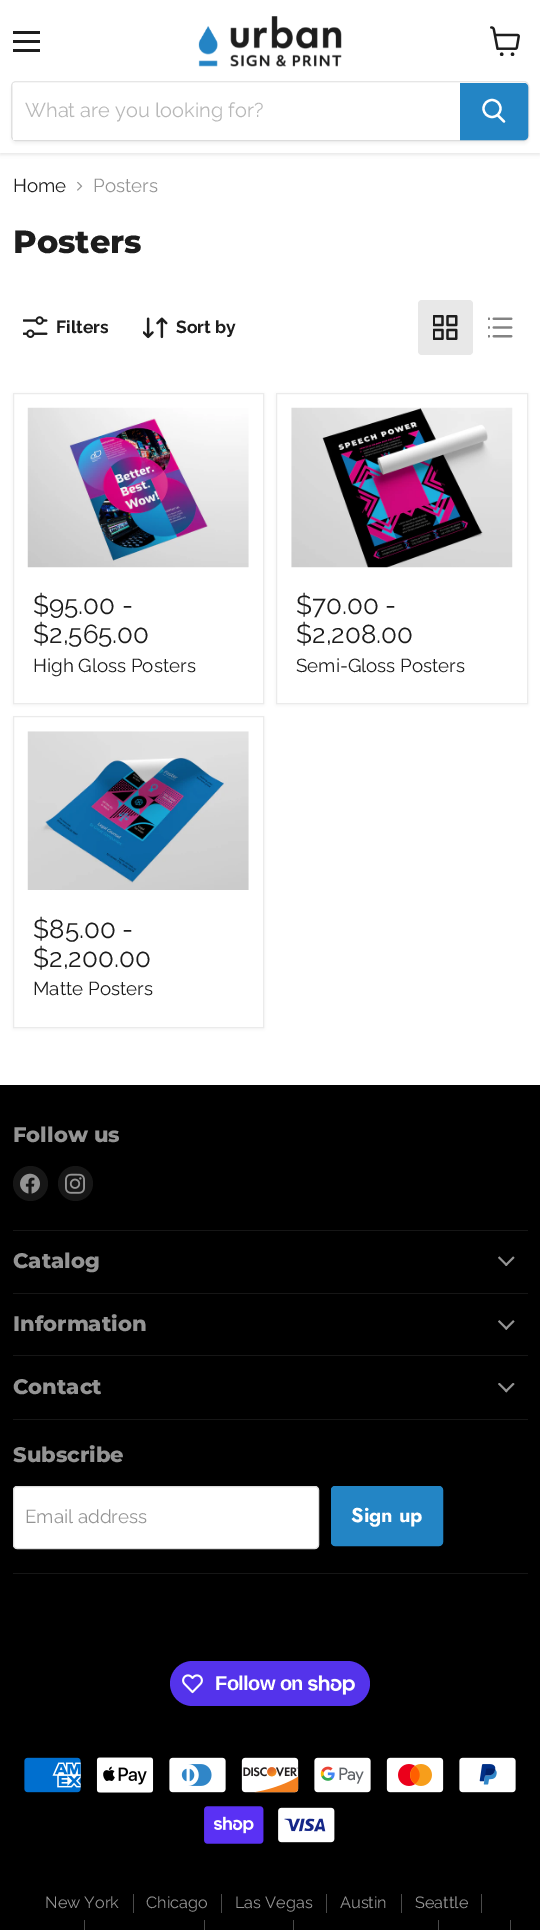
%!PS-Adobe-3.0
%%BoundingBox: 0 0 540 1930
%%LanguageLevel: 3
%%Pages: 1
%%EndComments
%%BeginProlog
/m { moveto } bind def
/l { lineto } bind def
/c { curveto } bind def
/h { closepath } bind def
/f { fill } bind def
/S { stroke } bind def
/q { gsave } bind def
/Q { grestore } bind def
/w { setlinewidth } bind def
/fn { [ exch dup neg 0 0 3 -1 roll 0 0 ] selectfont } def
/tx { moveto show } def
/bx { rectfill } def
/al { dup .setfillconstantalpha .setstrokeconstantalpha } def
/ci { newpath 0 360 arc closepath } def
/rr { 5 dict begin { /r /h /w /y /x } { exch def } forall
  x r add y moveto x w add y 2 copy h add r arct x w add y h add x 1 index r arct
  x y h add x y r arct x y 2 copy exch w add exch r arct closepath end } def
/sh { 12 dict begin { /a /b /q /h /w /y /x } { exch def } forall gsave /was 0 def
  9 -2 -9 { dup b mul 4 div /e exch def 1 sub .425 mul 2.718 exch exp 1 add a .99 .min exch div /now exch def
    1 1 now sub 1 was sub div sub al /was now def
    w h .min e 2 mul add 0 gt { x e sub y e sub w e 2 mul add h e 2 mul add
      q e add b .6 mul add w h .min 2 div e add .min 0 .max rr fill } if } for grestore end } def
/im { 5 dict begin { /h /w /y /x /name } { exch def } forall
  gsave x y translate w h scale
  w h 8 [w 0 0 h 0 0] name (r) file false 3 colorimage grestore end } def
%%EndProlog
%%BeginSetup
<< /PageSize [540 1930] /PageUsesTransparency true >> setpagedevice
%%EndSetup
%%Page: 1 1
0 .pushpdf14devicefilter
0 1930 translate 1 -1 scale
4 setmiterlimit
1 setgray
0 0 540 1930 bx
0.502 setgray
0 1 540 153 0 2.5 0.25 sh
1 setgray
0 0 540 153 bx
0.114 setgray
13 31 27 3 bx
13 40 27 3 bx
13 49 27 3 bx
(image0.raw) 490 26 30 30 im
(image1.raw) 198 16 144 51 im
0.502 setgray
11 84 518 60 5 2 0.11 sh
0.2 al
11.5 81.5 517 59 4.5 rr S
1 al
1 setgray
13 83 447 57 bx
/Raleway-Regular 20 fn
0.722 setgray
(What are you looking for?) 25 117 tx
0.137 0.522 0.773 setrgbcolor
460.5 83.5 m 524 83.5 l 526 83.5 527.5 85 527.5 87 c 527.5 136 l 527.5 138 526 139.5 524 139.5 c 460.5 139.5 l h q f Q
S
1 setgray
2.2 w
1 setlinecap
504 121.5 m 498 115.5 l S
0 setlinecap
492 108.5 8.5 ci S
/Raleway-Regular 18.75 fn
0.114 setgray
(Home) 13 192 tx
(image2.raw) 77 181 6 10 im
0.58 setgray
(Posters) 93 192 tx
/Montserrat-ExtraBold 32 fn
0.114 setgray
(Posters) 13 253 tx
(image3.raw) 23 316 25 22 im
/Raleway-Bold 17.5 fn
(Filters) 56 333 tx
(image4.raw) 143 317 25 22 im
(Sort by) 176 333 tx
0.91 setgray
418 300 55 55 4 rr f
(image5.raw) 433 315 25 25 im
(image6.raw) 488 317 25 21 im
0.502 setgray
13 394 251 311 0 2.5 0.11 sh
1 setgray
13.5 393.5 m 263.5 393.5 l 263.5 703.5 l 13.5 703.5 l h q f Q
0.922 setgray
1 w
S
(image7.raw) 27 407 222 161 im
/Raleway-Regular 26 fn
0.114 setgray
($95.00 -) 33 614 tx
($2,565.00) 33 643 tx
/Raleway-Regular 18.75 fn
(High Gloss Posters) 33 672 tx
0.502 setgray
276 394 252 311 0 2.5 0.11 sh
1 setgray
276.5 393.5 m 527.5 393.5 l 527.5 703.5 l 276.5 703.5 l h q f Q
0.922 setgray
S
(image8.raw) 291 407 222 161 im
/Raleway-Regular 26 fn
0.114 setgray
($70.00 -) 296 614 tx
($2,208.00) 296 643 tx
/Raleway-Regular 18.75 fn
(Semi-Gloss Posters) 296 672 tx
0.502 setgray
13 718 251 311 0 2.5 0.11 sh
1 setgray
13.5 716.5 m 263.5 716.5 l 263.5 1027.5 l 13.5 1027.5 l h q f Q
0.922 setgray
S
(image9.raw) 27 731 222 159 im
/Raleway-Regular 26 fn
0.114 setgray
($85.00 -) 33 938 tx
($2,200.00) 33 967 tx
/Raleway-Regular 18.75 fn
(Matte Posters) 33 995 tx
0 setgray
0 1085 540 845 bx
0.086 setgray
13 1230 515 1 bx
/Montserrat-ExtraBold 21 fn
0.58 setgray
(Follow us) 13 1142 tx
0.086 setgray
30.5 1183.5 17.5 ci f
(image10.raw) 20 1173 20 21 im
75.5 1183.5 17.5 ci f
(image11.raw) 65 1173 20 21 im
13 1293 515 1 bx
0.58 setgray
(Catalog) 13 1268 tx
(image12.raw) 498 1256 17 10 im
0.086 setgray
13 1355 515 1 bx
0.58 setgray
(Information) 13 1331 tx
(image13.raw) 498 1320 17 10 im
0.086 setgray
13 1419 515 1 bx
0.58 setgray
(Contact) 13 1394 tx
(image14.raw) 498 1383 17 10 im
0.086 setgray
13 1573 515 1 bx
0.58 setgray
(Subscribe) 13 1462 tx
1 setgray
13.5 1486.5 305 62 3.5 rr q f Q
0.867 setgray
S
/Raleway-Regular 18.75 fn
0.58 setgray
(Email address) 25 1523 tx
0.137 0.522 0.773 setrgbcolor
331.5 1486.5 111 59 3.5 rr q f Q
S
/Jost-Bold 20 fn
1 setgray
(Sign up) 351 1522 tx
0.329 0.2 0.922 setrgbcolor
170 1661 200 45 22.5 rr f
(image15.raw) 182 1674 21 20 im
/LiberationSans-Bold 20 fn
1 setgray
215 1690 m -0.6 0 (Follow on) ashow
(image16.raw) 308 1675 47 20 im
(image17.raw) 24 1757 57 36 im
(image18.raw) 96 1757 58 36 im
(image19.raw) 169 1757 57 36 im
(image20.raw) 241 1757 58 36 im
(image21.raw) 314 1757 57 36 im
(image22.raw) 386 1757 58 36 im
(image23.raw) 459 1757 57 36 im
(image24.raw) 204 1806 60 38 im
(image25.raw) 278 1807 57 36 im
0.29 setgray
133 1894 1 19 bx
/Raleway-Regular 16.25 fn
0.58 setgray
(New York) 45 1908 tx
0.29 setgray
221 1894 1 19 bx
0.58 setgray
(Chicago) 146 1908 tx
0.29 setgray
326 1894 1 19 bx
0.58 setgray
(Las Vegas) 235 1908 tx
0.29 setgray
401 1894 1 19 bx
0.58 setgray
(Austin) 340 1908 tx
0.29 setgray
481 1894 1 19 bx
0.58 setgray
(Seattle) 415 1908 tx
0.29 setgray
84 1920 1 10 bx
204 1920 1 10 bx
293 1920 1 10 bx
438 1920 1 10 bx
510 1920 1 10 bx
.poppdf14devicefilter showpage
%%EOF
